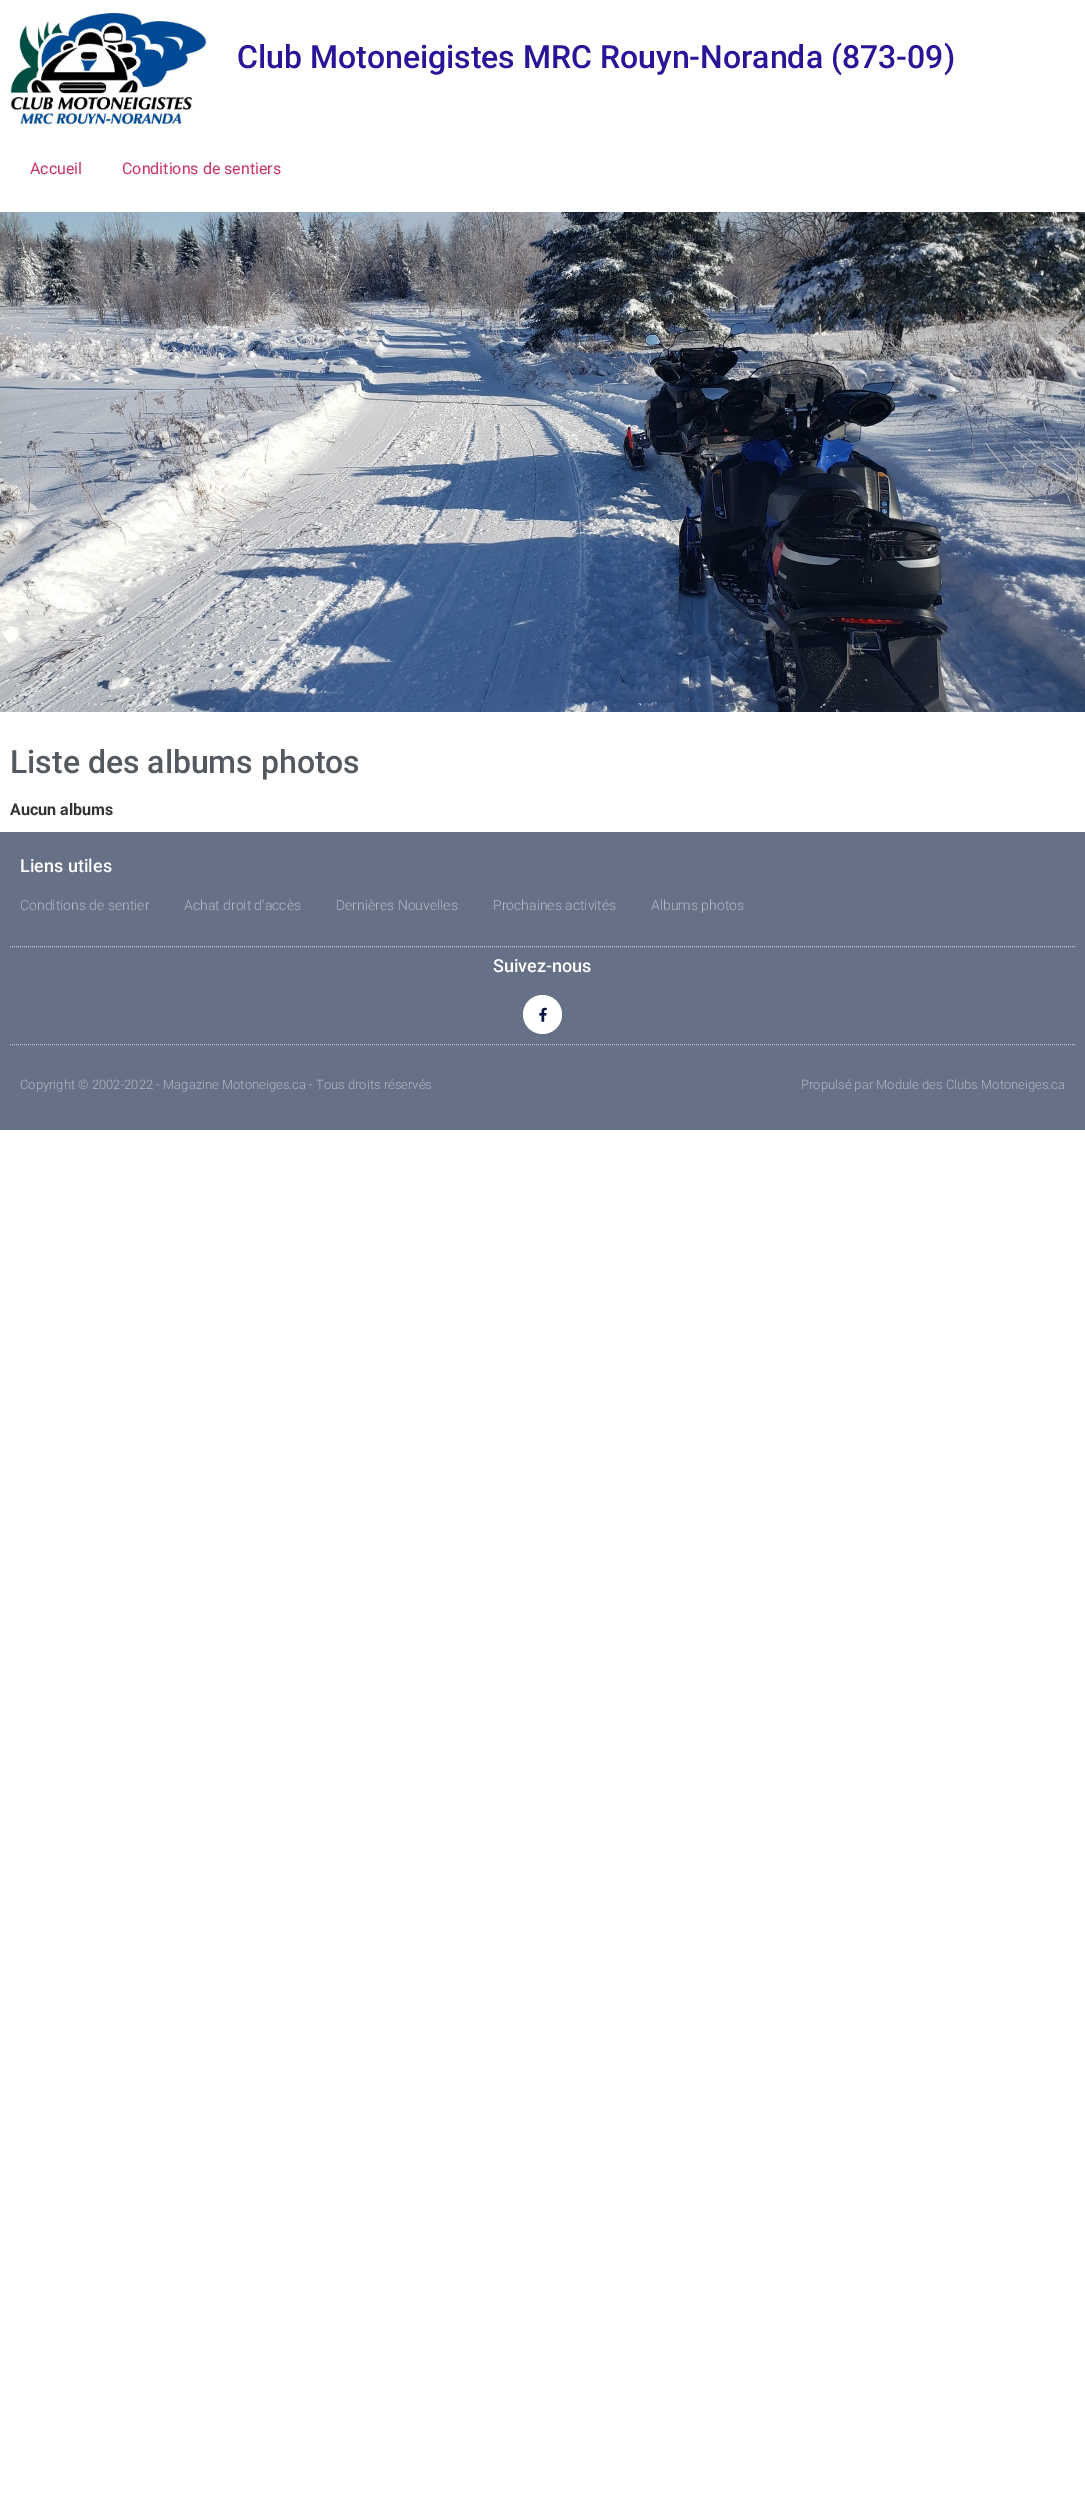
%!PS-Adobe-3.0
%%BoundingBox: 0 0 1085 2512
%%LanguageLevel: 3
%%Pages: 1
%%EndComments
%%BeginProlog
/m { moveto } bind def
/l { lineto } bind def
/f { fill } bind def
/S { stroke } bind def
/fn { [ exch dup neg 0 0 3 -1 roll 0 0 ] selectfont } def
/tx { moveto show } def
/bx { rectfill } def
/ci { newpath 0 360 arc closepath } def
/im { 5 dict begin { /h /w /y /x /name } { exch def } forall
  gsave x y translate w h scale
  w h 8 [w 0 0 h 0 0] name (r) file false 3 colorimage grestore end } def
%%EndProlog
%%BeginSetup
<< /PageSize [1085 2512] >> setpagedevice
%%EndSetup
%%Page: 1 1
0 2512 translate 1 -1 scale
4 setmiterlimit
1 setgray
0 0 1085 2512 bx
(image0.raw) 10 13 197 113 im
/Roboto-Medium 32 fn
0.165 0.082 0.596 setrgbcolor
(Club Motoneigistes MRC Rouyn-Noranda \(873-09\)) 237 68 tx
/Roboto-Regular 16 fn
0.8 0.2 0.4 setrgbcolor
(Accueil) 30 174 tx
(Conditions de sentiers) 122 174 tx
(image1.raw) 0 212 1085 500 im
/Roboto-Medium 32 fn
0.329 0.349 0.373 setrgbcolor
(Liste des albums photos) 10 773 tx
/Roboto-Bold 16 fn
0.2 setgray
(Aucun albums) 10 815 tx
0.4 0.439 0.525 setrgbcolor
0 832 1085 298 bx
/Roboto-Medium 18 fn
1 setgray
(Liens utiles) 20 872 tx
/Roboto-Light 14 fn
0.702 0.722 0.765 setrgbcolor
(Conditions de sentier) 20 910 tx
(Achat droit d'accès) 184 910 tx
(Dernières Nouvelles) 336 910 tx
(Prochaines activités) 493 910 tx
(Albums photos) 651 910 tx
0.753 0.769 0.804 setrgbcolor
[1 1] 0 setdash
10 946.5 m 1075 946.5 l S
/Roboto-Medium 18 fn
1 setgray
(Suivez-nous) 493 972 tx
542.5 1014.5 19.5 ci f
(image2.raw) 539 1007 8 15 im
0.753 0.769 0.804 setrgbcolor
10 1044.5 m 1075 1044.5 l S
/Roboto-Light 13 fn
0.702 0.722 0.765 setrgbcolor
(Copyright © 2002-2022 - Magazine Motoneiges.ca - Tous droits réservés) 20 1089 tx
(Propulsé par Module des Clubs Motoneiges.ca) 801 1089 tx
showpage
%%EOF
